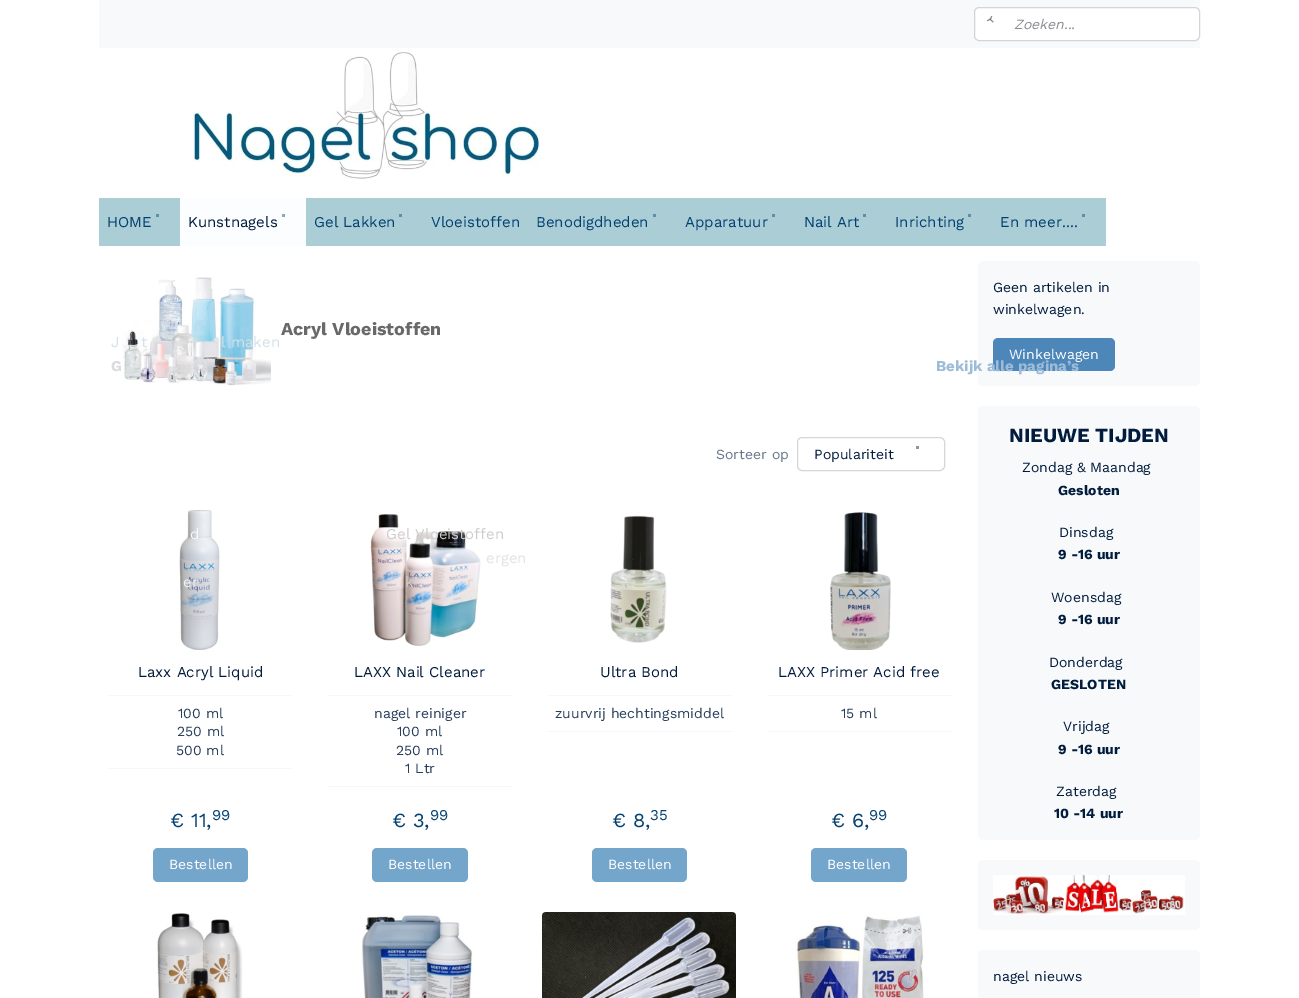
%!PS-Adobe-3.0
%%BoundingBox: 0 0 1299 998
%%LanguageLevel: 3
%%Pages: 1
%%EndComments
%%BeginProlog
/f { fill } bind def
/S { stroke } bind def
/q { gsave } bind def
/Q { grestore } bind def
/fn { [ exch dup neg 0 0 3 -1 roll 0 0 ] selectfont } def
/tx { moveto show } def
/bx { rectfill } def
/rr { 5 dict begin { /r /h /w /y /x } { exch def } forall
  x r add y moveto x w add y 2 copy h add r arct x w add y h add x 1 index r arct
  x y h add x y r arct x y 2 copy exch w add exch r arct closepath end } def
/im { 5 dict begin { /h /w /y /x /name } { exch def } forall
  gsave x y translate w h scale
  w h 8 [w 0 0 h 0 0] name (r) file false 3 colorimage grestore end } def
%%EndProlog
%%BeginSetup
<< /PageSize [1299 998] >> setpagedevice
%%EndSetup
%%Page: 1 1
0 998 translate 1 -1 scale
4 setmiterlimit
1 setgray
0 0 1299 998 bx
0.973 0.976 0.984 setrgbcolor
99 0 1101 48 bx
1 setgray
974.5 7.5 225 33 4.5 rr q f Q
0.827 0.835 0.851 setrgbcolor
S
(image0.raw) 987 16 7 7 im
/WorkSans-Italic 14 fn
0.537 0.549 0.569 setrgbcolor
(Zoeken...) 1014 29 tx
(image1.raw) 191 52 351 127 im
0.671 0.804 0.839 setrgbcolor
99 198 81 48 bx
0.373 0.557 0.663 setrgbcolor
156 214 3 3 bx
/WorkSans-Regular 15 fn
0.008 0.255 0.447 setrgbcolor
(HOME) 107 227 tx
0.827 0.882 0.91 setrgbcolor
(J) 111 347 tx
(image2.raw) 122 277 149 109 im
(t) 141 347 tx
(l maken) 221 347 tx
0.671 0.804 0.839 setrgbcolor
306 198 800 48 bx
0.373 0.557 0.663 setrgbcolor
399 214 3 3 bx
0.008 0.255 0.447 setrgbcolor
(Gel Lakken) 314 227 tx
/WorkSans-Bold 15 fn
0.863 0.855 0.863 setrgbcolor
(G) 111 371 tx
0.973 0.976 0.984 setrgbcolor
978 261 222 125 5 rr f
0.302 0.529 0.729 setrgbcolor
993 338 122 33 5 rr f
0.612 0.737 0.851 setrgbcolor
(Bekijk alle pagina’s) 936 371 tx
0.988 0.992 1 setrgbcolor
180 198 126 48 bx
0.549 0.659 0.753 setrgbcolor
282 214 3 3 bx
/WorkSans-Regular 15 fn
0.008 0.11 0.243 setrgbcolor
(Kunstnagels) 188 227 tx
(image3.raw) 179 510 41 140 im
0.969 0.973 0.976 setrgbcolor
(d) 190 539 tx
0.941 0.945 0.949 setrgbcolor
(er) 183 587 tx
(image4.raw) 370 514 111 132 im
0.808 0.804 0.808 setrgbcolor
(Gel Vloeistoffen) 386 539 tx
0.835 0.812 0.839 setrgbcolor
(k) 405 587 tx
(r) 467 587 tx
0.008 0.255 0.447 setrgbcolor
(Vloeistoffen) 431 227 tx
0.373 0.557 0.663 setrgbcolor
653 214 3 3 bx
0.008 0.255 0.447 setrgbcolor
(Benodigdheden) 536 227 tx
0.886 0.89 0.906 setrgbcolor
(ergen) 486 563 tx
0.373 0.557 0.663 setrgbcolor
772 214 3 3 bx
0.008 0.255 0.447 setrgbcolor
(Apparatuur) 685 227 tx
0.373 0.557 0.663 setrgbcolor
863 214 3 3 bx
0.008 0.255 0.447 setrgbcolor
(Nail Art) 804 227 tx
0.373 0.557 0.663 setrgbcolor
968 214 3 3 bx
0.008 0.255 0.447 setrgbcolor
(Inrichting) 895 227 tx
0.373 0.557 0.663 setrgbcolor
1082 214 3 3 bx
0.008 0.255 0.447 setrgbcolor
(En meer....) 1000 227 tx
/WorkSans-Bold 18 fn
0.412 setgray
(Acryl Vloeistoffen) 281 335 tx
/WorkSans-Regular 14 fn
0.404 0.467 0.545 setrgbcolor
(Sorteer op) 716 459 tx
0.839 setgray
797.5 437.5 147 33 4.5 rr S
0.553 0.6 0.659 setrgbcolor
916 446 3 3 bx
0.008 0.11 0.243 setrgbcolor
(Populariteit) 814 459 tx
/WorkSans-Regular 15 fn
(Laxx Acryl Liquid) 138 677 tx
0.969 0.969 0.984 setrgbcolor
108 695 185 1 bx
108 768 185 1 bx
/WorkSans-Regular 14 fn
0.157 0.243 0.357 setrgbcolor
(100 ml) 178 718 tx
(250 ml) 177 736 tx
(500 ml) 176 755 tx
/WorkSans-Regular 20 fn
0.008 0.255 0.447 setrgbcolor
(€ 11,) 170 827 tx
/WorkSans-Regular 15 fn
(99) 212 820 tx
0.455 0.647 0.792 setrgbcolor
153 848 95 34 5 rr f
/WorkSans-Regular 14 fn
1 setgray
(Bestellen) 169 869 tx
/WorkSans-Regular 15 fn
0.008 0.11 0.243 setrgbcolor
(LAXX Nail Cleaner) 354 677 tx
0.969 0.969 0.984 setrgbcolor
328 695 184 1 bx
328 786 184 1 bx
/WorkSans-Regular 14 fn
0.157 0.243 0.357 setrgbcolor
(nagel reiniger) 374 718 tx
(100 ml) 397 736 tx
(250 ml) 396 755 tx
(1 Ltr) 405 773 tx
/WorkSans-Regular 20 fn
0.008 0.255 0.447 setrgbcolor
(€ 3,) 392 827 tx
/WorkSans-Regular 15 fn
(99) 430 820 tx
0.455 0.647 0.792 setrgbcolor
372 848 96 34 5 rr f
/WorkSans-Regular 14 fn
1 setgray
(Bestellen) 388 869 tx
(image5.raw) 610 515 57 128 im
/WorkSans-Regular 15 fn
0.008 0.11 0.243 setrgbcolor
(Ultra Bond) 600 677 tx
0.969 0.969 0.984 setrgbcolor
547 695 185 1 bx
547 731 185 1 bx
/WorkSans-Regular 14 fn
0.157 0.243 0.357 setrgbcolor
(zuurvrij hechtingsmiddel) 555 718 tx
/WorkSans-Regular 20 fn
0.008 0.255 0.447 setrgbcolor
(€ 8,) 612 827 tx
/WorkSans-Regular 15 fn
(35) 650 820 tx
0.455 0.647 0.792 setrgbcolor
592 848 95 34 5 rr f
/WorkSans-Regular 14 fn
1 setgray
(Bestellen) 608 869 tx
(image6.raw) 830 512 61 138 im
/WorkSans-Regular 15 fn
0.008 0.11 0.243 setrgbcolor
(LAXX Primer Acid free) 778 677 tx
0.969 0.969 0.984 setrgbcolor
767 695 184 1 bx
767 731 184 1 bx
/WorkSans-Regular 14 fn
0.157 0.243 0.357 setrgbcolor
(15 ml) 841 718 tx
/WorkSans-Regular 20 fn
0.008 0.255 0.447 setrgbcolor
(€ 6,) 831 827 tx
/WorkSans-Regular 15 fn
(99) 869 820 tx
0.455 0.647 0.792 setrgbcolor
811 848 96 34 5 rr f
/WorkSans-Regular 14 fn
1 setgray
(Bestellen) 827 869 tx
(image7.raw) 157 913 86 85 im
(image8.raw) 360 914 113 84 im
(image9.raw) 542 912 194 86 im
(image10.raw) 796 915 128 83 im
0.008 0.11 0.243 setrgbcolor
(Geen artikelen in) 993 292 tx
(winkelwagen.) 993 314 tx
1 setgray
(Winkelwagen) 1009 359 tx
0.973 0.976 0.984 setrgbcolor
978 406 222 434 5 rr f
/WorkSans-Bold 20 fn
0.008 0.11 0.243 setrgbcolor
(NIEUWE TIJDEN) 1009 442 tx
/WorkSans-Regular 14 fn
(Zondag & Maandag) 1022 472 tx
/WorkSans-Bold 14 fn
(Gesloten) 1058 495 tx
/WorkSans-Regular 14 fn
(Dinsdag) 1059 537 tx
/WorkSans-Bold 14 fn
(9 -16 uur) 1058 559 tx
/WorkSans-Regular 14 fn
(Woensdag) 1051 602 tx
/WorkSans-Bold 14 fn
(9 -16 uur) 1058 624 tx
/WorkSans-Regular 14 fn
(Donderdag) 1049 667 tx
/WorkSans-Bold 14 fn
(GESLOTEN) 1051 689 tx
/WorkSans-Regular 14 fn
(Vrijdag) 1063 731 tx
/WorkSans-Bold 14 fn
(9 -16 uur) 1058 754 tx
/WorkSans-Regular 14 fn
(Zaterdag) 1056 796 tx
/WorkSans-Bold 14 fn
(10 -14 uur) 1054 818 tx
0.973 0.976 0.984 setrgbcolor
978 860 222 70 5 rr f
(image11.raw) 993 875 192 40 im
978 950 222 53 5 rr f
/WorkSans-Regular 14 fn
0.008 0.11 0.243 setrgbcolor
(nagel nieuws) 993 981 tx
showpage
%%EOF
